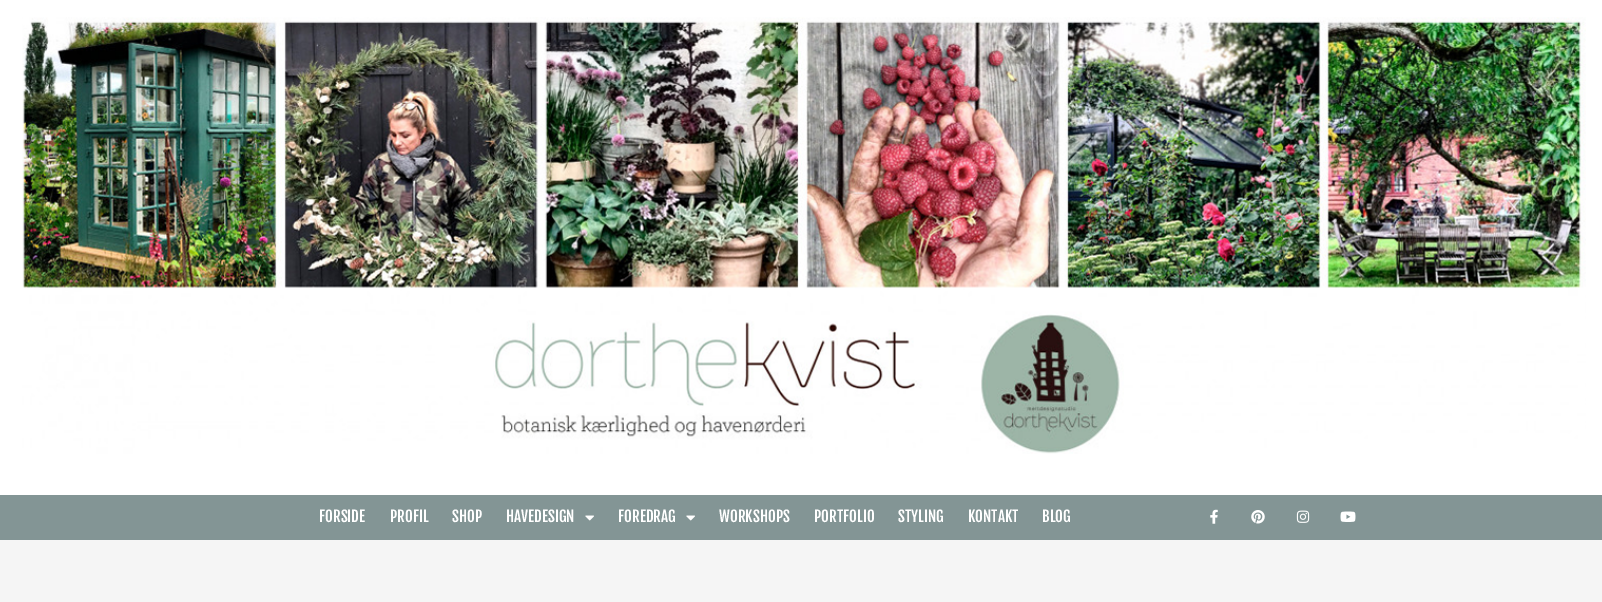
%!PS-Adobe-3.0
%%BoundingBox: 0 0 1602 602
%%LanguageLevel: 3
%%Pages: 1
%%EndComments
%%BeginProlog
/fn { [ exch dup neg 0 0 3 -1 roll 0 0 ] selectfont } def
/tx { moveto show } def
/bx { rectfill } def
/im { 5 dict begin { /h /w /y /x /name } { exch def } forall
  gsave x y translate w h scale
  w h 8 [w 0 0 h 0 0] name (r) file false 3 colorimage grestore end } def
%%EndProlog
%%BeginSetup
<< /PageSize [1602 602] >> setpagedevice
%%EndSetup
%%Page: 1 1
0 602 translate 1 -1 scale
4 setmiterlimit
0.961 setgray
0 0 1602 602 bx
1 setgray
0 0 1602 495 bx
(image0.raw) 22 17 1564 437 im
0.514 0.584 0.584 setrgbcolor
0 495 1602 45 bx
/FjallaOne-Regular 15 fn
1 setgray
(FORSIDE) 319 522 tx
(PROFIL) 390 522 tx
(SHOP) 452 522 tx
(HAVEDESIGN) 506 522 tx
(image1.raw) 585 515 9 6 im
(FOREDRAG) 618 522 tx
(image1.raw) 686 515 9 6 im
(WORKSHOPS) 719 522 tx
(PORTFOLIO) 814 522 tx
(STYLING) 898 522 tx
(KONTAKT) 968 522 tx
(BLOG) 1042 522 tx
(image2.raw) 1210 509 8 15 im
(image3.raw) 1251 510 14 14 im
(image4.raw) 1296 510 14 13 im
(image5.raw) 1340 511 16 11 im
showpage
%%EOF
